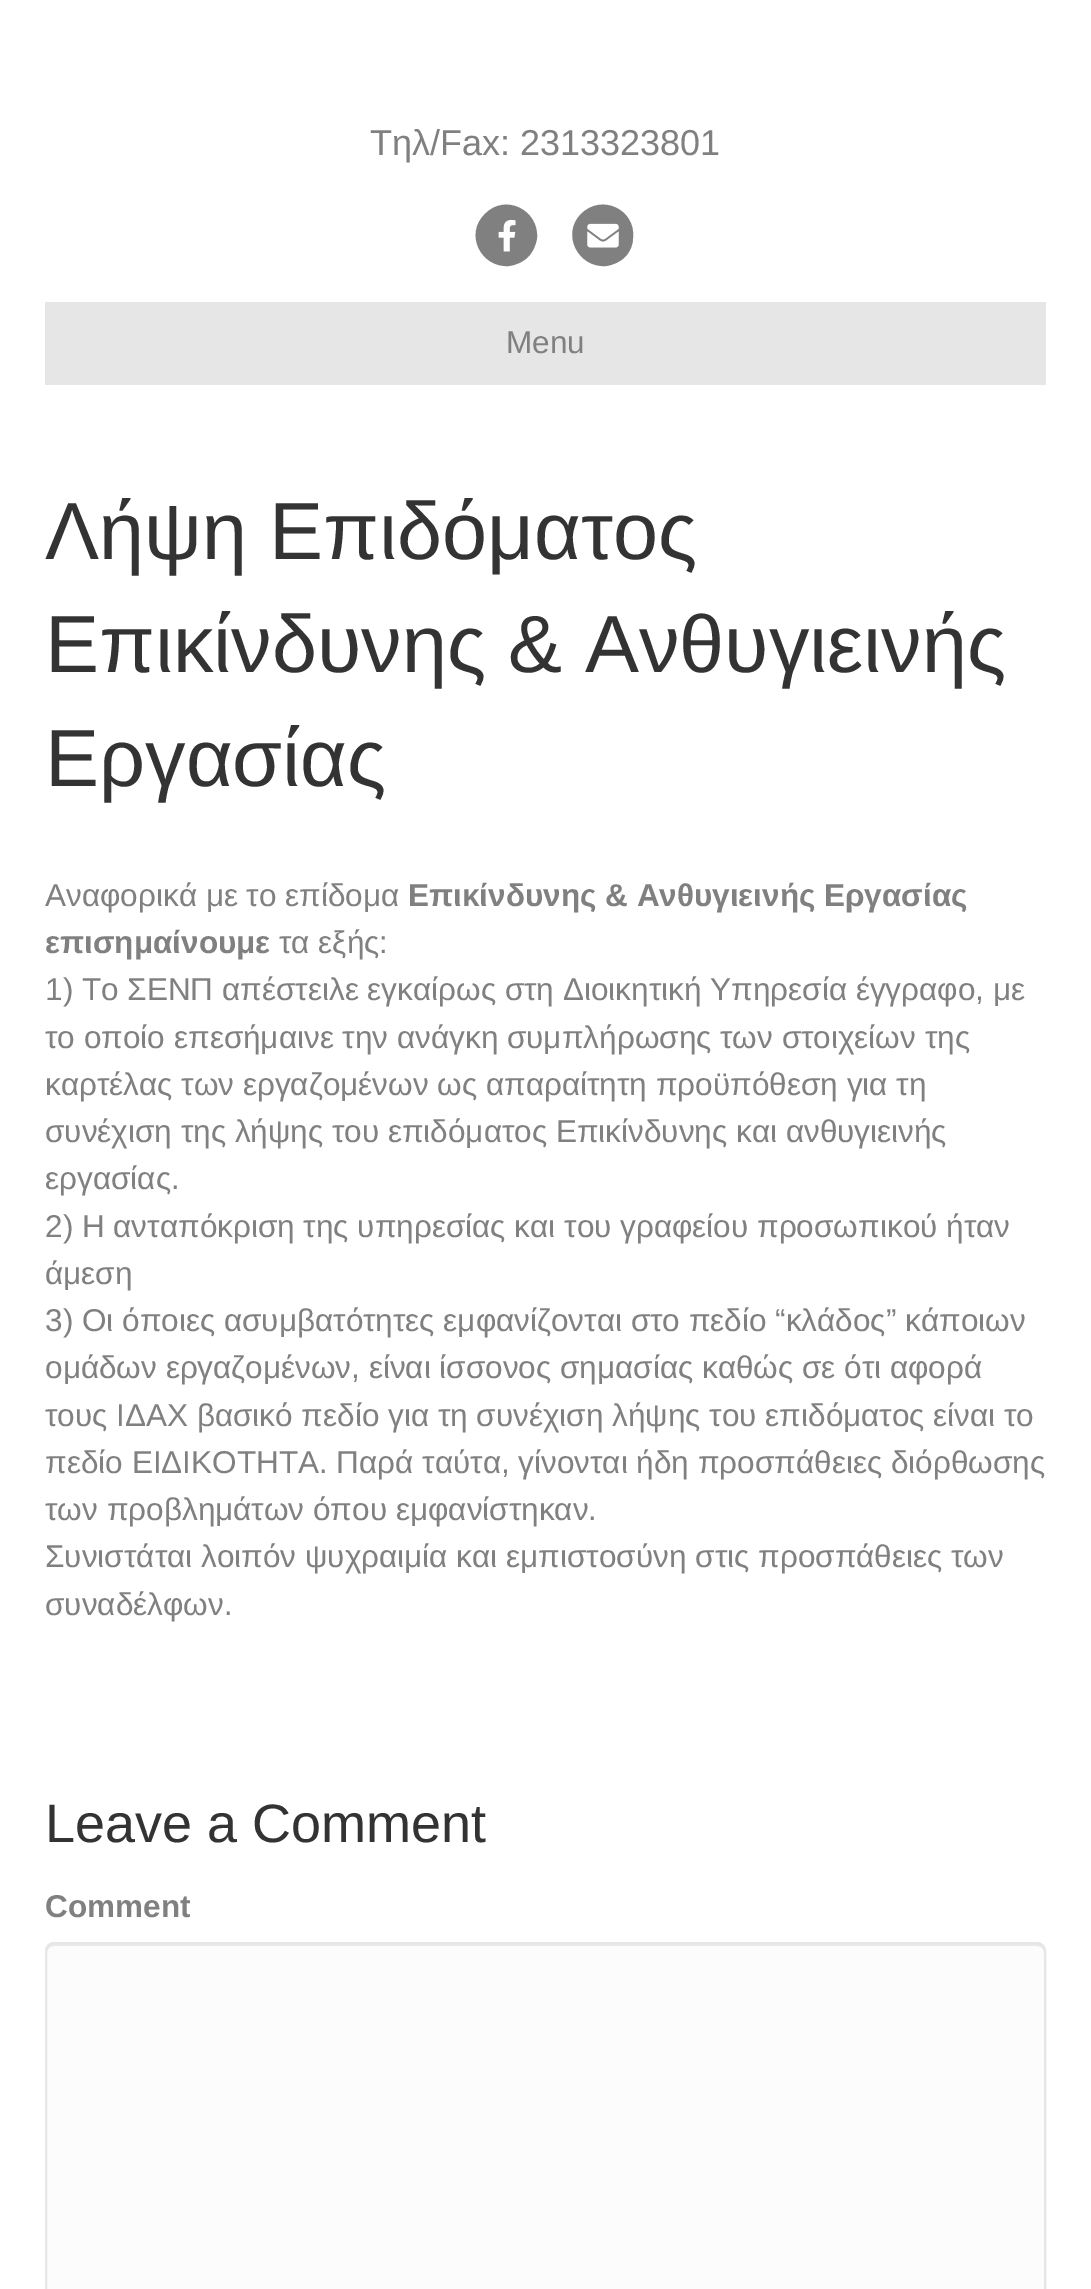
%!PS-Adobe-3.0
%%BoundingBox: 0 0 1091 2289
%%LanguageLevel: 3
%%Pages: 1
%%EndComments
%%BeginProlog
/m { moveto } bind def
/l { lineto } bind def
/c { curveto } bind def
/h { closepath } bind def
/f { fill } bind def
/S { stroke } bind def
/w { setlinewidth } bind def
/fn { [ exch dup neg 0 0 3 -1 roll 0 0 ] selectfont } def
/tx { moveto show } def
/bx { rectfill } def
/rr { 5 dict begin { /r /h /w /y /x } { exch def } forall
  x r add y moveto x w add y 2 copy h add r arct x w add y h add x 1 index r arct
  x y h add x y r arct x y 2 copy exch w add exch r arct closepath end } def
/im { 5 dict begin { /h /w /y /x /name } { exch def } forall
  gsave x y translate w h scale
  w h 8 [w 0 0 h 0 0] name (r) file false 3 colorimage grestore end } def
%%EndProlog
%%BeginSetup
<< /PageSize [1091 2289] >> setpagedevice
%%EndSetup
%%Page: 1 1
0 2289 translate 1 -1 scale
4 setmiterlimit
1 setgray
0 0 1091 2289 bx
/LiberationSans-Regular 36 fn
0.502 setgray
(Τηλ/Fax: 2313323801) 370 155 tx
485 214 m 505 193 539 210 537 238 c 536 245 533 252 528 257 c 523 262 516 265 509 266 c 481 268 464 234 485 214 c h f
(image0.raw) 498 219 18 33 im
581 214 m 602 193 636 210 633 238 c 633 245 630 252 625 257 c 620 262 613 265 606 266 c 578 268 561 234 581 214 c h f
(image1.raw) 587 223 32 25 im
0.902 setgray
45 302 1001 83 bx
/LiberationSans-Regular 31.5 fn
0.502 setgray
(Menu) 506 353 tx
/LiberationSans-Regular 81 fn
0.2 setgray
(Λήψη Επιδόματος) 45 559 tx
(Επικίνδυνης & Ανθυγιεινής) 45 672 tx
(Εργασίας) 45 786 tx
/LiberationSans-Regular 31.5 fn
0.502 setgray
(Αναφορικά με το επίδομα) 45 906 tx
/LiberationSans-Bold 31.5 fn
(Επικίνδυνης & Ανθυγιεινής Εργασίας) 408 906 tx
(επισημαίνουμε) 45 953 tx
/LiberationSans-Regular 31.5 fn
(τα εξής:) 279 953 tx
(1\) Το ΣΕΝΠ απέστειλε εγκαίρως στη Διοικητική Υπηρεσία έγγραφο, με) 45 1000 tx
(το οποίο επεσήμαινε την ανάγκη συμπλήρωσης των στοιχείων της) 45 1048 tx
(καρτέλας των εργαζομένων ως απαραίτητη προϋπόθεση για τη) 45 1095 tx
(συνέχιση της λήψης του επιδόματος Επικίνδυνης και ανθυγιεινής) 45 1142 tx
(εργασίας.) 45 1189 tx
(2\) Η ανταπόκριση της υπηρεσίας και του γραφείου προσωπικού ήταν) 45 1237 tx
(άμεση) 45 1284 tx
(3\) Οι όποιες ασυμβατότητες εμφανίζονται στο πεδίο “κλάδος” κάποιων) 45 1331 tx
(ομάδων εργαζομένων, είναι ίσσονος σημασίας καθώς σε ότι αφορά) 45 1378 tx
(τους ΙΔΑΧ βασικό πεδίο για τη συνέχιση λήψης του επιδόματος είναι το) 45 1426 tx
(πεδίο ΕΙΔΙΚΟΤΗΤΑ. Παρά ταύτα, γίνονται ήδη προσπάθειες διόρθωσης) 45 1473 tx
(των προβλημάτων όπου εμφανίστηκαν.) 45 1520 tx
(Συνιστάται λοιπόν ψυχραιμία και εμπιστοσύνη στις προσπάθειες των) 45 1567 tx
(συναδέλφων.) 45 1615 tx
/LiberationSans-Regular 54 fn
0.2 setgray
(Leave a Comment) 45 1842 tx
/LiberationSans-Bold 31.5 fn
0.502 setgray
(Comment) 45 1917 tx
0.988 setgray
45 1942 1001 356 9 rr f
0.914 setgray
54 1946 m 1037 1946 l 1041 1946 1044 1949 1044 1953 c 1044 1951 l 1044 1947 1041 1944 1037 1944 c 54 1944 l 50 1944 47 1947 47 1951 c 47 1953 l 47 1949 50 1946 54 1946 c h f
0.902 setgray
2 w
46 1943 999 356 8 rr S
showpage
%%EOF
